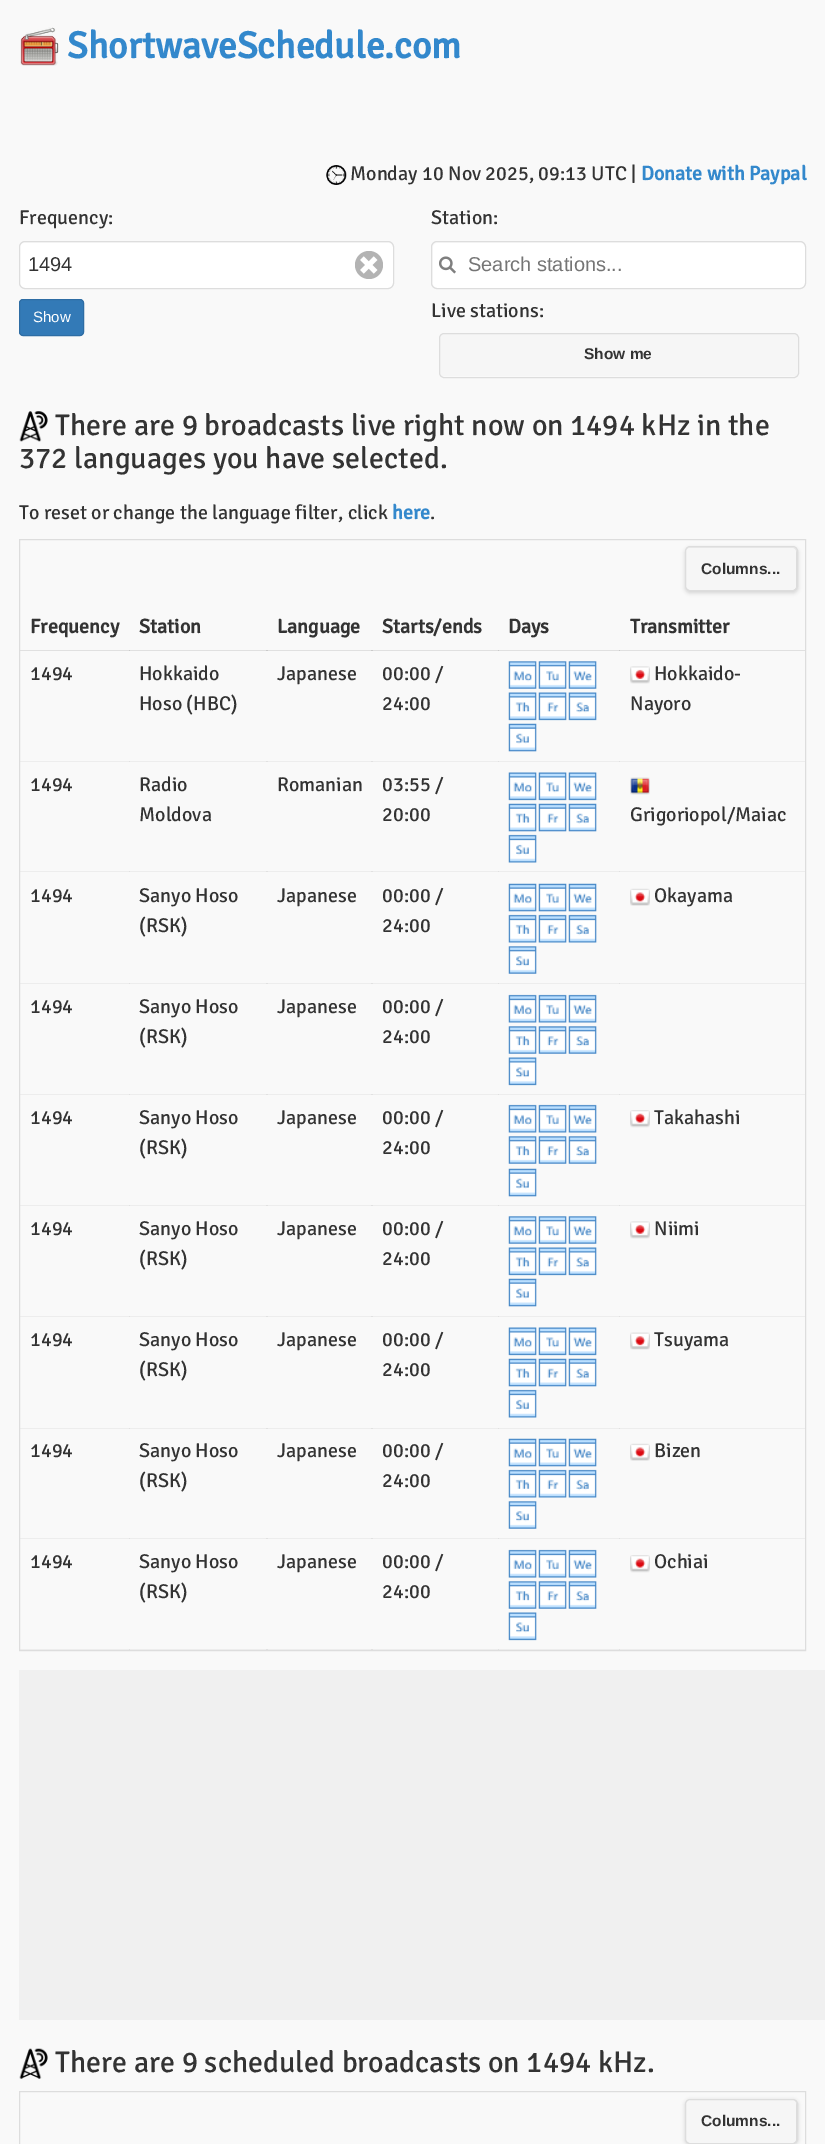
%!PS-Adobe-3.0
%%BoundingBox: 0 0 825 2144
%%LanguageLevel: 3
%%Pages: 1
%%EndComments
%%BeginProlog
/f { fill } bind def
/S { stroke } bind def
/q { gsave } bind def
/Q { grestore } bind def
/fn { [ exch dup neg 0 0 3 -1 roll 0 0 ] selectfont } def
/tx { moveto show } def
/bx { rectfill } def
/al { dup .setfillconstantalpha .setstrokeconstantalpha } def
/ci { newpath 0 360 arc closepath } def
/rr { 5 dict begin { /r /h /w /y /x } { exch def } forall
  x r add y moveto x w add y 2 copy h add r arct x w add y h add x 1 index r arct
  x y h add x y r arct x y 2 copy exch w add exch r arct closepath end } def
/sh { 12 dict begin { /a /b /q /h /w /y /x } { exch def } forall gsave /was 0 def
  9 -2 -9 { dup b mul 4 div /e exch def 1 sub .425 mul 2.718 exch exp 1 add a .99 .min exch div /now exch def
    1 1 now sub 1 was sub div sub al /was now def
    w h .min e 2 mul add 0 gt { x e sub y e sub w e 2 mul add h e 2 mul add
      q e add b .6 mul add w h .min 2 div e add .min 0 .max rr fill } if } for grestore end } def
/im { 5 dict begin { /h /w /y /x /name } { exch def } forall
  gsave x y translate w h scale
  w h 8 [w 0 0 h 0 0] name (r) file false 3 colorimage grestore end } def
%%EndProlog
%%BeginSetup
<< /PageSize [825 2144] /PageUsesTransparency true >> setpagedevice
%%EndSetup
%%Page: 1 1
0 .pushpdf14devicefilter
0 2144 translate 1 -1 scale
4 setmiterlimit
0.976 setgray
0 0 825 2144 bx
0.878 setgray
20 650 600 1 bx
0.792 setgray
129 650 1 1 bx
266 650 2 1 bx
371 650 2 1 bx
498 650 1 1 bx
0.929 setgray
20 761 600 1 bx
0.882 setgray
129 761 1 1 bx
266 761 2 1 bx
371 761 2 1 bx
498 761 1 1 bx
0.929 setgray
20 871 600 1 bx
0.882 setgray
129 871 1 1 bx
266 871 2 1 bx
371 871 2 1 bx
498 871 1 1 bx
0.929 setgray
20 983 600 1 bx
0.882 setgray
129 983 1 1 bx
266 983 2 1 bx
371 983 2 1 bx
498 983 1 1 bx
0.929 setgray
20 1094 600 1 bx
0.882 setgray
129 1094 1 1 bx
266 1094 2 1 bx
371 1094 2 1 bx
498 1094 1 1 bx
0.929 setgray
20 1205 600 1 bx
0.882 setgray
129 1205 1 1 bx
266 1205 2 1 bx
371 1205 2 1 bx
498 1205 1 1 bx
0.929 setgray
20 1316 600 1 bx
0.882 setgray
129 1316 1 1 bx
266 1316 2 1 bx
371 1316 2 1 bx
498 1316 1 1 bx
0.929 setgray
20 1428 600 1 bx
0.882 setgray
129 1428 1 1 bx
266 1428 2 1 bx
371 1428 2 1 bx
498 1428 1 1 bx
0.929 setgray
20 1538 600 1 bx
0.882 setgray
129 1538 1 1 bx
266 1538 2 1 bx
371 1538 2 1 bx
498 1538 1 1 bx
0.929 setgray
20 1649 600 1 bx
0.882 setgray
129 1649 1 1 bx
266 1649 2 1 bx
371 1649 2 1 bx
498 1649 1 1 bx
(image0.raw) 20 27 39 39 im
/Signika-Bold 37.5 fn
0.2 0.533 0.8 setrgbcolor
(ShortwaveSchedule.com) 67 58 tx
(image1.raw) 326 165 21 20 im
/Signika-Light 20 fn
0.2 setgray
(Monday 10 Nov 2025, 09:13 UTC |) 350 180 tx
/Signika-Bold 20 fn
0.2 0.533 0.8 setrgbcolor
(Donate with Paypal) 641 180 tx
/Signika-Light 20 fn
0.2 setgray
(Frequency:) 19 224 tx
1 setgray
20 243 373 45 5 rr f
0.867 setgray
19.5 241.5 374 47 5.5 rr S
/LiberationSans-Regular 20 fn
0.2 setgray
(1494) 28 271 tx
0.702 setgray
369 265 14 ci f
(image2.raw) 360 256 18 18 im
0.2 0.478 0.718 setrgbcolor
19.5 299.5 64 36 3.5 rr q f Q
0.18 0.427 0.643 setrgbcolor
S
/LiberationSans-Regular 15 fn
1 setgray
(Show) 33 322 tx
/Signika-Light 20 fn
0.2 setgray
(Station:) 431 224 tx
1 setgray
433 243 372 45 5 rr f
0.867 setgray
431.5 241.5 374 47 5.5 rr S
(image3.raw) 439 256 17 18 im
/LiberationSans-Regular 20 fn
0.459 setgray
(Search stations...) 468 271 tx
/Signika-Light 20 fn
0.2 setgray
(Live stations:) 431 317 tx
0.965 setgray
440 334 358 42 4 rr f
0.867 setgray
439.5 333.5 359 44 4.5 rr S
/LiberationSans-Bold 15.5 fn
0.2 setgray
(Show me) 584 359 tx
(image4.raw) 19 411 29 31 im
/Signika-Light 30 fn
(There are 9 broadcasts live right now on 1494 kHz in the) 55 435 tx
(372 languages you have selected.) 19 468 tx
/Signika-Light 20 fn
(To reset or change the language filter, click) 19 519 tx
/Signika-Bold 20 fn
0.2 0.533 0.8 setrgbcolor
(here) 392 519 tx
/Signika-Light 20 fn
0.2 setgray
(.) 430 519 tx
0.867 setgray
19.5 539.5 786 1111 rectstroke
0 setgray
685 548 113 45 5 2 0.15 sh
0.965 setgray
686 548 110 42 4 rr f
0.867 setgray
685.5 546.5 112 44 4.5 rr S
/LiberationSans-Bold 15.5 fn
0.2 setgray
(Columns...) 701 574 tx
/Signika-Bold 20 fn
(Frequency) 30 633 tx
(Station) 139 633 tx
(Language) 277 633 tx
(Starts/ends) 382 633 tx
(Days) 508 633 tx
0.878 setgray
619 650 186 1 bx
0.792 setgray
619 650 1 1 bx
0.2 setgray
(Transmitter) 630 633 tx
/Signika-Light 20 fn
(1494) 30 680 tx
(Hokkaido) 139 680 tx
(Hoso \(HBC\)) 139 710 tx
(Japanese) 277 680 tx
(00:00 /) 382 680 tx
(24:00) 382 710 tx
(image5.raw) 508 661 29 28 im
(image6.raw) 538 661 29 28 im
(image7.raw) 568 661 29 28 im
(image8.raw) 508 692 29 29 im
(image9.raw) 538 692 29 29 im
(image10.raw) 568 692 29 29 im
(image11.raw) 508 723 29 29 im
0.929 setgray
619 761 186 1 bx
0.882 setgray
619 761 1 1 bx
(image12.raw) 630 666 20 18 im
0.2 setgray
(Hokkaido-) 654 680 tx
(Nayoro) 630 710 tx
(1494) 30 791 tx
(Radio) 139 791 tx
(Moldova) 139 821 tx
(Romanian) 277 791 tx
(03:55 /) 382 791 tx
(20:00) 382 821 tx
(image13.raw) 508 772 29 29 im
(image14.raw) 538 772 29 29 im
(image15.raw) 568 772 29 29 im
(image16.raw) 508 803 29 29 im
(image17.raw) 538 803 29 29 im
(image18.raw) 568 803 29 29 im
(image19.raw) 508 834 29 29 im
0.929 setgray
619 871 186 1 bx
0.882 setgray
619 871 1 1 bx
(image20.raw) 630 777 20 18 im
0.2 setgray
(Grigoriopol/Maiac) 630 821 tx
(1494) 30 902 tx
(Sanyo Hoso) 139 902 tx
(\(RSK\)) 139 932 tx
(Japanese) 277 902 tx
(00:00 /) 382 902 tx
(24:00) 382 932 tx
(image21.raw) 508 883 29 29 im
(image22.raw) 538 883 29 29 im
(image23.raw) 568 883 29 29 im
(image24.raw) 508 914 29 29 im
(image25.raw) 538 914 29 29 im
(image26.raw) 568 914 29 29 im
(image27.raw) 508 946 29 28 im
0.929 setgray
619 983 186 1 bx
0.882 setgray
619 983 1 1 bx
(image28.raw) 630 888 20 18 im
0.2 setgray
(Okayama) 654 902 tx
(1494) 30 1013 tx
(Sanyo Hoso) 139 1013 tx
(\(RSK\)) 139 1043 tx
(Japanese) 277 1013 tx
(00:00 /) 382 1013 tx
(24:00) 382 1043 tx
(image29.raw) 508 994 29 29 im
(image30.raw) 538 994 29 29 im
(image31.raw) 568 994 29 29 im
(image32.raw) 508 1026 29 28 im
(image33.raw) 538 1026 29 28 im
(image34.raw) 568 1026 29 28 im
(image35.raw) 508 1057 29 29 im
0.929 setgray
619 1094 186 1 bx
0.882 setgray
619 1094 1 1 bx
0.2 setgray
(1494) 30 1124 tx
(Sanyo Hoso) 139 1124 tx
(\(RSK\)) 139 1154 tx
(Japanese) 277 1124 tx
(00:00 /) 382 1124 tx
(24:00) 382 1154 tx
(image29.raw) 508 1104 29 29 im
(image30.raw) 538 1104 29 29 im
(image31.raw) 568 1104 29 29 im
(image36.raw) 508 1136 29 28 im
(image37.raw) 538 1136 29 28 im
(image38.raw) 568 1136 29 28 im
(image39.raw) 508 1168 29 29 im
0.929 setgray
619 1205 186 1 bx
0.882 setgray
619 1205 1 1 bx
(image40.raw) 630 1110 20 18 im
0.2 setgray
(Takahashi) 654 1124 tx
(1494) 30 1235 tx
(Sanyo Hoso) 139 1235 tx
(\(RSK\)) 139 1265 tx
(Japanese) 277 1235 tx
(00:00 /) 382 1235 tx
(24:00) 382 1265 tx
(image5.raw) 508 1216 29 28 im
(image6.raw) 538 1216 29 28 im
(image7.raw) 568 1216 29 28 im
(image8.raw) 508 1247 29 29 im
(image9.raw) 538 1247 29 29 im
(image10.raw) 568 1247 29 29 im
(image11.raw) 508 1278 29 29 im
0.929 setgray
619 1316 186 1 bx
0.882 setgray
619 1316 1 1 bx
(image12.raw) 630 1221 20 18 im
0.2 setgray
(Niimi) 654 1235 tx
(1494) 30 1346 tx
(Sanyo Hoso) 139 1346 tx
(\(RSK\)) 139 1376 tx
(Japanese) 277 1346 tx
(00:00 /) 382 1346 tx
(24:00) 382 1376 tx
(image13.raw) 508 1327 29 29 im
(image14.raw) 538 1327 29 29 im
(image15.raw) 568 1327 29 29 im
(image16.raw) 508 1358 29 29 im
(image17.raw) 538 1358 29 29 im
(image18.raw) 568 1358 29 29 im
(image19.raw) 508 1389 29 29 im
0.929 setgray
619 1428 186 1 bx
0.882 setgray
619 1428 1 1 bx
(image41.raw) 630 1332 20 18 im
0.2 setgray
(Tsuyama) 654 1346 tx
(1494) 30 1457 tx
(Sanyo Hoso) 139 1457 tx
(\(RSK\)) 139 1487 tx
(Japanese) 277 1457 tx
(00:00 /) 382 1457 tx
(24:00) 382 1487 tx
(image21.raw) 508 1438 29 29 im
(image22.raw) 538 1438 29 29 im
(image23.raw) 568 1438 29 29 im
(image24.raw) 508 1469 29 29 im
(image25.raw) 538 1469 29 29 im
(image26.raw) 568 1469 29 29 im
(image27.raw) 508 1501 29 28 im
0.929 setgray
619 1538 186 1 bx
0.882 setgray
619 1538 1 1 bx
(image28.raw) 630 1443 20 18 im
0.2 setgray
(Bizen) 654 1457 tx
(1494) 30 1568 tx
(Sanyo Hoso) 139 1568 tx
(\(RSK\)) 139 1598 tx
(Japanese) 277 1568 tx
(00:00 /) 382 1568 tx
(24:00) 382 1598 tx
(image42.raw) 508 1549 29 29 im
(image43.raw) 538 1549 29 29 im
(image44.raw) 568 1549 29 29 im
(image36.raw) 508 1581 29 28 im
(image37.raw) 538 1581 29 28 im
(image38.raw) 568 1581 29 28 im
(image35.raw) 508 1612 29 29 im
0.929 setgray
619 1649 186 1 bx
0.882 setgray
619 1649 1 1 bx
(image45.raw) 630 1555 20 18 im
0.2 setgray
(Ochiai) 654 1568 tx
0.941 setgray
19 1670 806 350 bx
(image46.raw) 19 2048 29 31 im
/Signika-Light 30 fn
0.2 setgray
(There are 9 scheduled broadcasts on 1494 kHz.) 55 2072 tx
0.867 setgray
19.5 2091.5 786 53 rectstroke
0 setgray
685 2100 113 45 5 2 0.15 sh
0.965 setgray
686 2100 110 43 4 rr f
0.867 setgray
685.5 2099.5 112 44 4.5 rr S
/LiberationSans-Bold 15.5 fn
0.2 setgray
(Columns...) 701 2126 tx
.poppdf14devicefilter showpage
%%EOF
